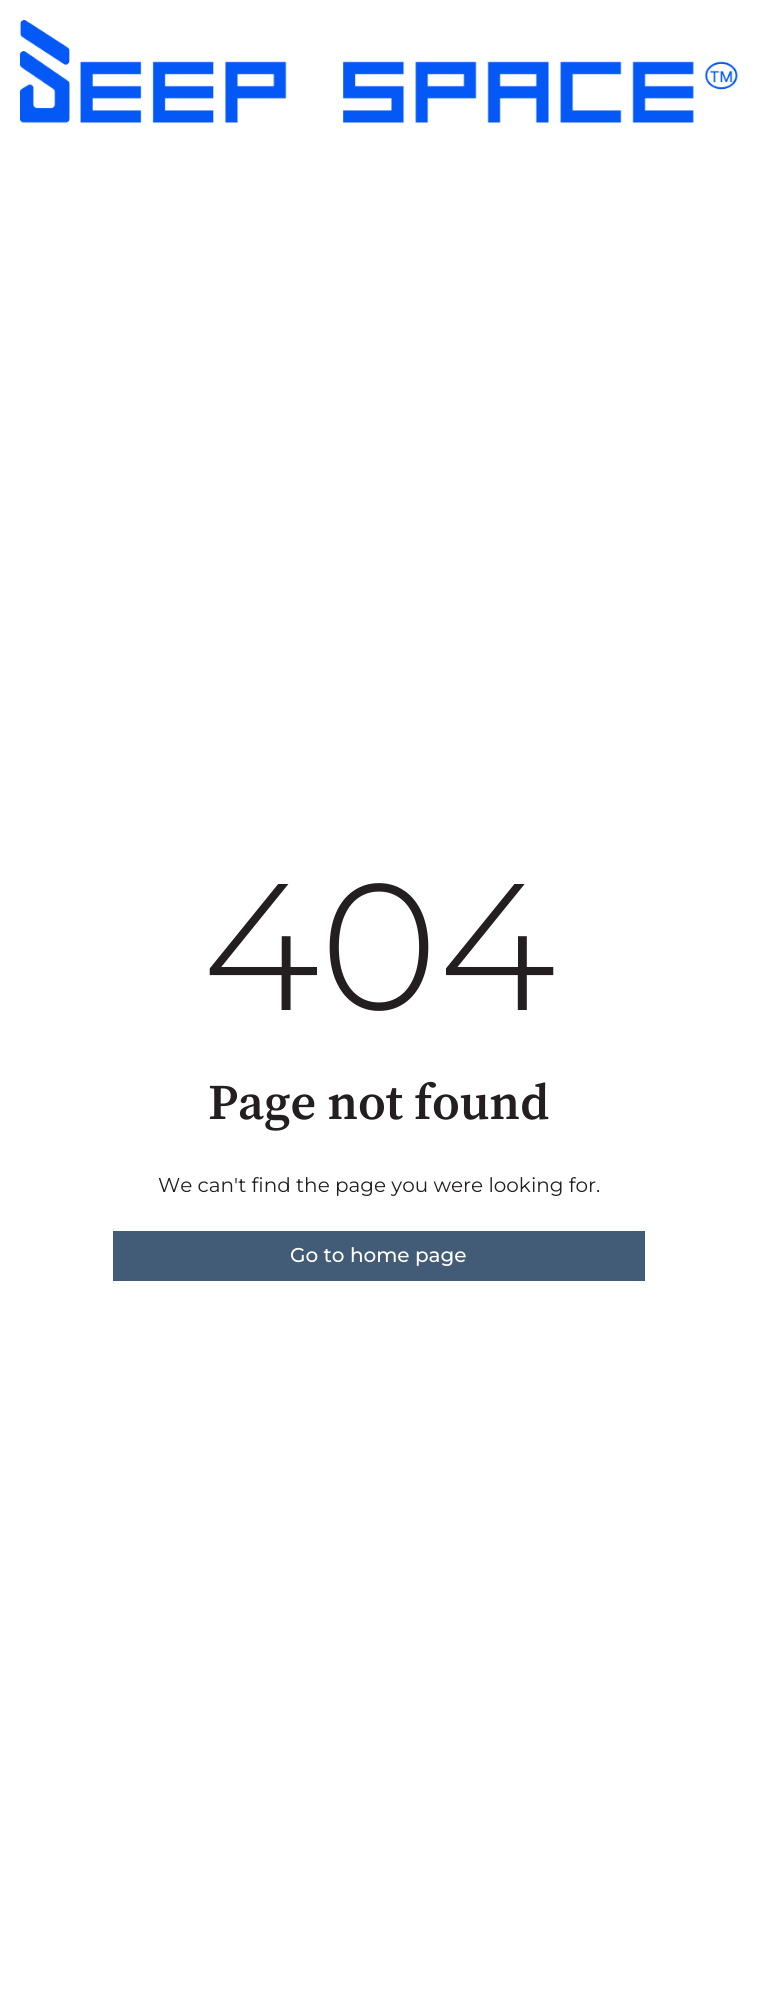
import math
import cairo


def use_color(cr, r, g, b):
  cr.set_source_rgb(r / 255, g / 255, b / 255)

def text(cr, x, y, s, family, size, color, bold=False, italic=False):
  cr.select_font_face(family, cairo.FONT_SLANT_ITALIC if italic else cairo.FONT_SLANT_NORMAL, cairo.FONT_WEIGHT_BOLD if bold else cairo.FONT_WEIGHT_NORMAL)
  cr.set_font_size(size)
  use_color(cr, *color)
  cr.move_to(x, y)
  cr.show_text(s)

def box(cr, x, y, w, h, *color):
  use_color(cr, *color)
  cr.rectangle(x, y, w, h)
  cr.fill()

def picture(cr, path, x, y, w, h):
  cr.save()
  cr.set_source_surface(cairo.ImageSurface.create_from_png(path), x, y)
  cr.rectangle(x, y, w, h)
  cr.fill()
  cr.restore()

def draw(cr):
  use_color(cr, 255, 255, 255)
  cr.paint()
  picture(cr, "img_01.png", 20, 20, 718, 103)
  box(cr, 113, 1231, 532, 50, 66, 91, 118)
  text(cr, 202, 1010, "404", "Montserrat Light", 180, (35, 31, 32))
  text(cr, 208, 1119, "Page not found", "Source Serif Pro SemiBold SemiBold", 50, (35, 31, 32))
  text(cr, 158, 1192, "We can't find the page you were looking for.", "Montserrat", 20, (35, 31, 32))
  text(cr, 290, 1262, "Go to home page", "Montserrat Medium", 20, (255, 255, 255))


surface = cairo.ImageSurface(cairo.FORMAT_RGB24, 757, 1994)
cr = cairo.Context(surface)
options = cairo.FontOptions()
options.set_hint_metrics(cairo.HINT_METRICS_OFF)
options.set_hint_style(cairo.HINT_STYLE_NONE)
cr.set_font_options(options)
cr.set_miter_limit(4)
draw(cr)
surface.write_to_png("out.png")
